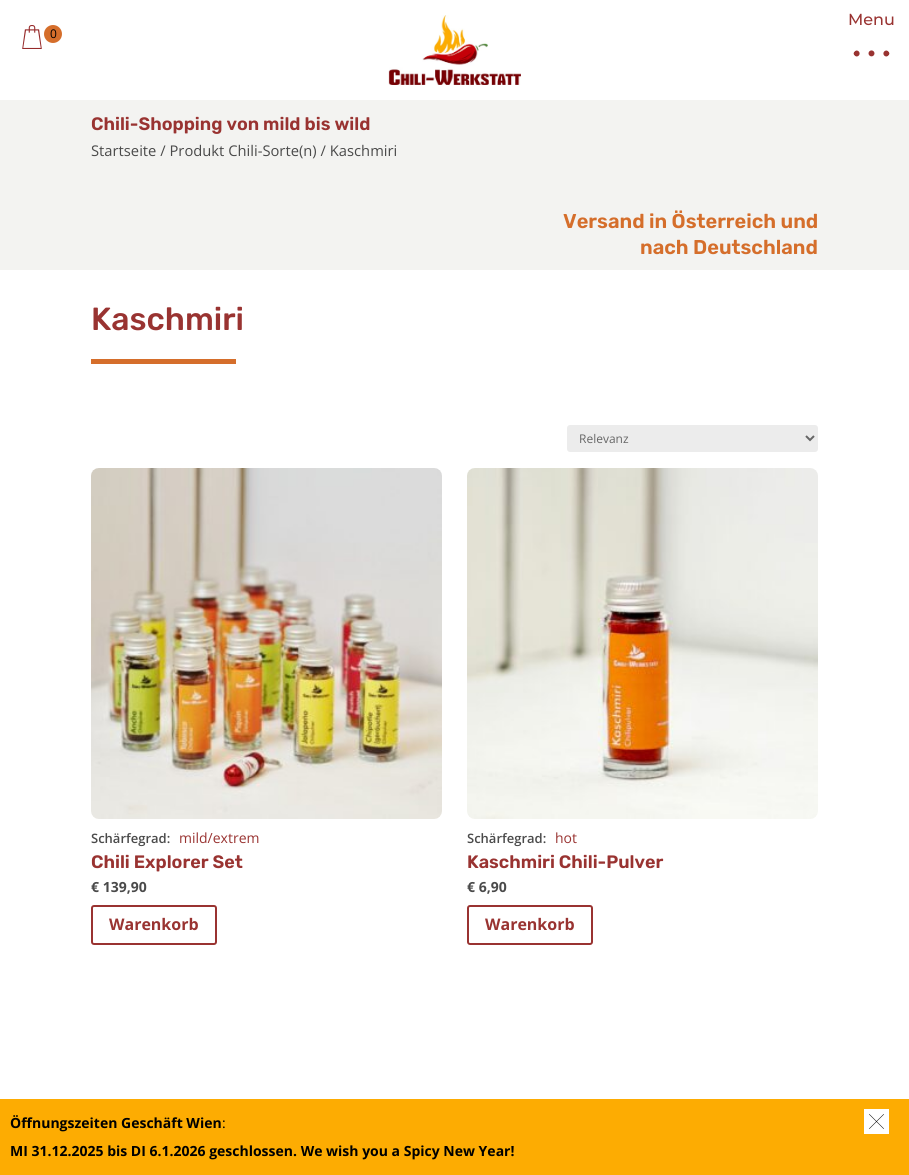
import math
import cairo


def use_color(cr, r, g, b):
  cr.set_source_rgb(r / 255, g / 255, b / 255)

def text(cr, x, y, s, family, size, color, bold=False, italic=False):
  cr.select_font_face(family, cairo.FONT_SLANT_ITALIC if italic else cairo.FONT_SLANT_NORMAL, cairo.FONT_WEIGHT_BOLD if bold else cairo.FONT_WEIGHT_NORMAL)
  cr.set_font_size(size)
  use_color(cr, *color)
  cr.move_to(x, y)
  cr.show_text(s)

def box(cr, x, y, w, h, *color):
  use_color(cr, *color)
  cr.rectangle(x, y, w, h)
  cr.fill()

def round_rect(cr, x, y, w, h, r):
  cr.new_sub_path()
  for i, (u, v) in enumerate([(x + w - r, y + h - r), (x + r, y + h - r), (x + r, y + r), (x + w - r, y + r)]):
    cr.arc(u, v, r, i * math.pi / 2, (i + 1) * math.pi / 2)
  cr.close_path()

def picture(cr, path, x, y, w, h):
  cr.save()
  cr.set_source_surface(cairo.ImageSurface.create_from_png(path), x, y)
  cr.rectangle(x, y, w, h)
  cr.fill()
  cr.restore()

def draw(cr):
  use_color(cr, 255, 255, 255)
  cr.paint()
  picture(cr, "img_01.png", 853, 50, 37, 7)
  picture(cr, "img_02.png", 22, 25, 20, 24)
  use_color(cr, 213, 110, 43)
  cr.arc(53, 34, 9, 0, 2 * math.pi)
  cr.fill()
  picture(cr, "img_03.png", 388, 15, 133, 70)
  box(cr, 0, 100, 909, 170, 243, 243, 241)
  box(cr, 91, 359, 145, 5, 213, 110, 43)
  use_color(cr, 236, 236, 236)
  round_rect(cr, 567, 425, 251, 27, 3)
  cr.fill()
  cr.new_path()
  cr.move_to(806, 436)
  cr.line_to(810, 440)
  cr.line_to(814, 436)
  use_color(cr, 102, 102, 102)
  cr.stroke()
  picture(cr, "img_04.png", 91, 468, 351, 351)
  round_rect(cr, 92, 906, 124, 38, 2)
  use_color(cr, 153, 51, 49)
  cr.stroke()
  picture(cr, "img_05.png", 467, 468, 351, 351)
  round_rect(cr, 468, 906, 124, 38, 2)
  cr.stroke()
  box(cr, 0, 1099, 909, 76, 253, 172, 2)
  box(cr, 864, 1109, 25, 25, 255, 255, 255)
  picture(cr, "img_06.png", 869, 1114, 15, 15)
  text(cr, 848, 25, "Menu", "Montserrat Medium", 16, (153, 51, 49))
  text(cr, 50, 38, "0", "Open Sans", 12, (0, 0, 0))
  text(cr, 91, 130, "Chili-Shopping von mild bis wild", "Rubik SemiBold", 18, (153, 51, 49))
  text(cr, 91, 156, "Startseite / Produkt Chili-Sorte(n) / Kaschmiri", "Open Sans", 14.75, (74, 74, 74))
  text(cr, 563, 228, "Versand in Österreich und", "Rubik SemiBold", 20, (213, 110, 43))
  text(cr, 640, 254, "nach Deutschland", "Rubik SemiBold", 20, (213, 110, 43))
  text(cr, 91, 330, "Kaschmiri", "Rubik Medium", 32, (153, 51, 49))
  text(cr, 579, 443, "Relevanz", "Open Sans", 12, (102, 102, 102))
  text(cr, 91, 843, "Schärfegrad:", "Open Sans SemiBold", 13, (74, 74, 74))
  text(cr, 179, 843, "mild/extrem", "Open Sans", 14, (153, 51, 49))
  text(cr, 91, 868, "Chili Explorer Set", "Rubik SemiBold", 18, (153, 51, 49))
  text(cr, 91, 892, "€ 139,90", "Open Sans", 14, (74, 74, 74), bold=True)
  text(cr, 109, 930, "Warenkorb", "Open Sans", 16, (153, 51, 49), bold=True)
  text(cr, 467, 843, "Schärfegrad:", "Open Sans SemiBold", 13, (74, 74, 74))
  text(cr, 555, 843, "hot", "Open Sans", 14, (153, 51, 49))
  text(cr, 467, 868, "Kaschmiri Chili-Pulver", "Rubik SemiBold", 18, (153, 51, 49))
  text(cr, 467, 892, "€ 6,90", "Open Sans", 14, (74, 74, 74), bold=True)
  text(cr, 485, 930, "Warenkorb", "Open Sans", 16, (153, 51, 49), bold=True)
  text(cr, 10, 1128, "Öffnungszeiten Geschäft Wien", "Open Sans", 14, (0, 0, 0), bold=True)
  text(cr, 222, 1128, ":", "Open Sans", 14, (0, 0, 0))
  text(cr, 10, 1156, "MI 31.12.2025 bis DI 6.1.2026 geschlossen. We wish you a Spicy New Year!", "Open Sans", 14, (0, 0, 0), bold=True)


surface = cairo.ImageSurface(cairo.FORMAT_RGB24, 909, 1175)
cr = cairo.Context(surface)
options = cairo.FontOptions()
options.set_hint_metrics(cairo.HINT_METRICS_OFF)
options.set_hint_style(cairo.HINT_STYLE_NONE)
cr.set_font_options(options)
cr.set_miter_limit(4)
draw(cr)
surface.write_to_png("out.png")
